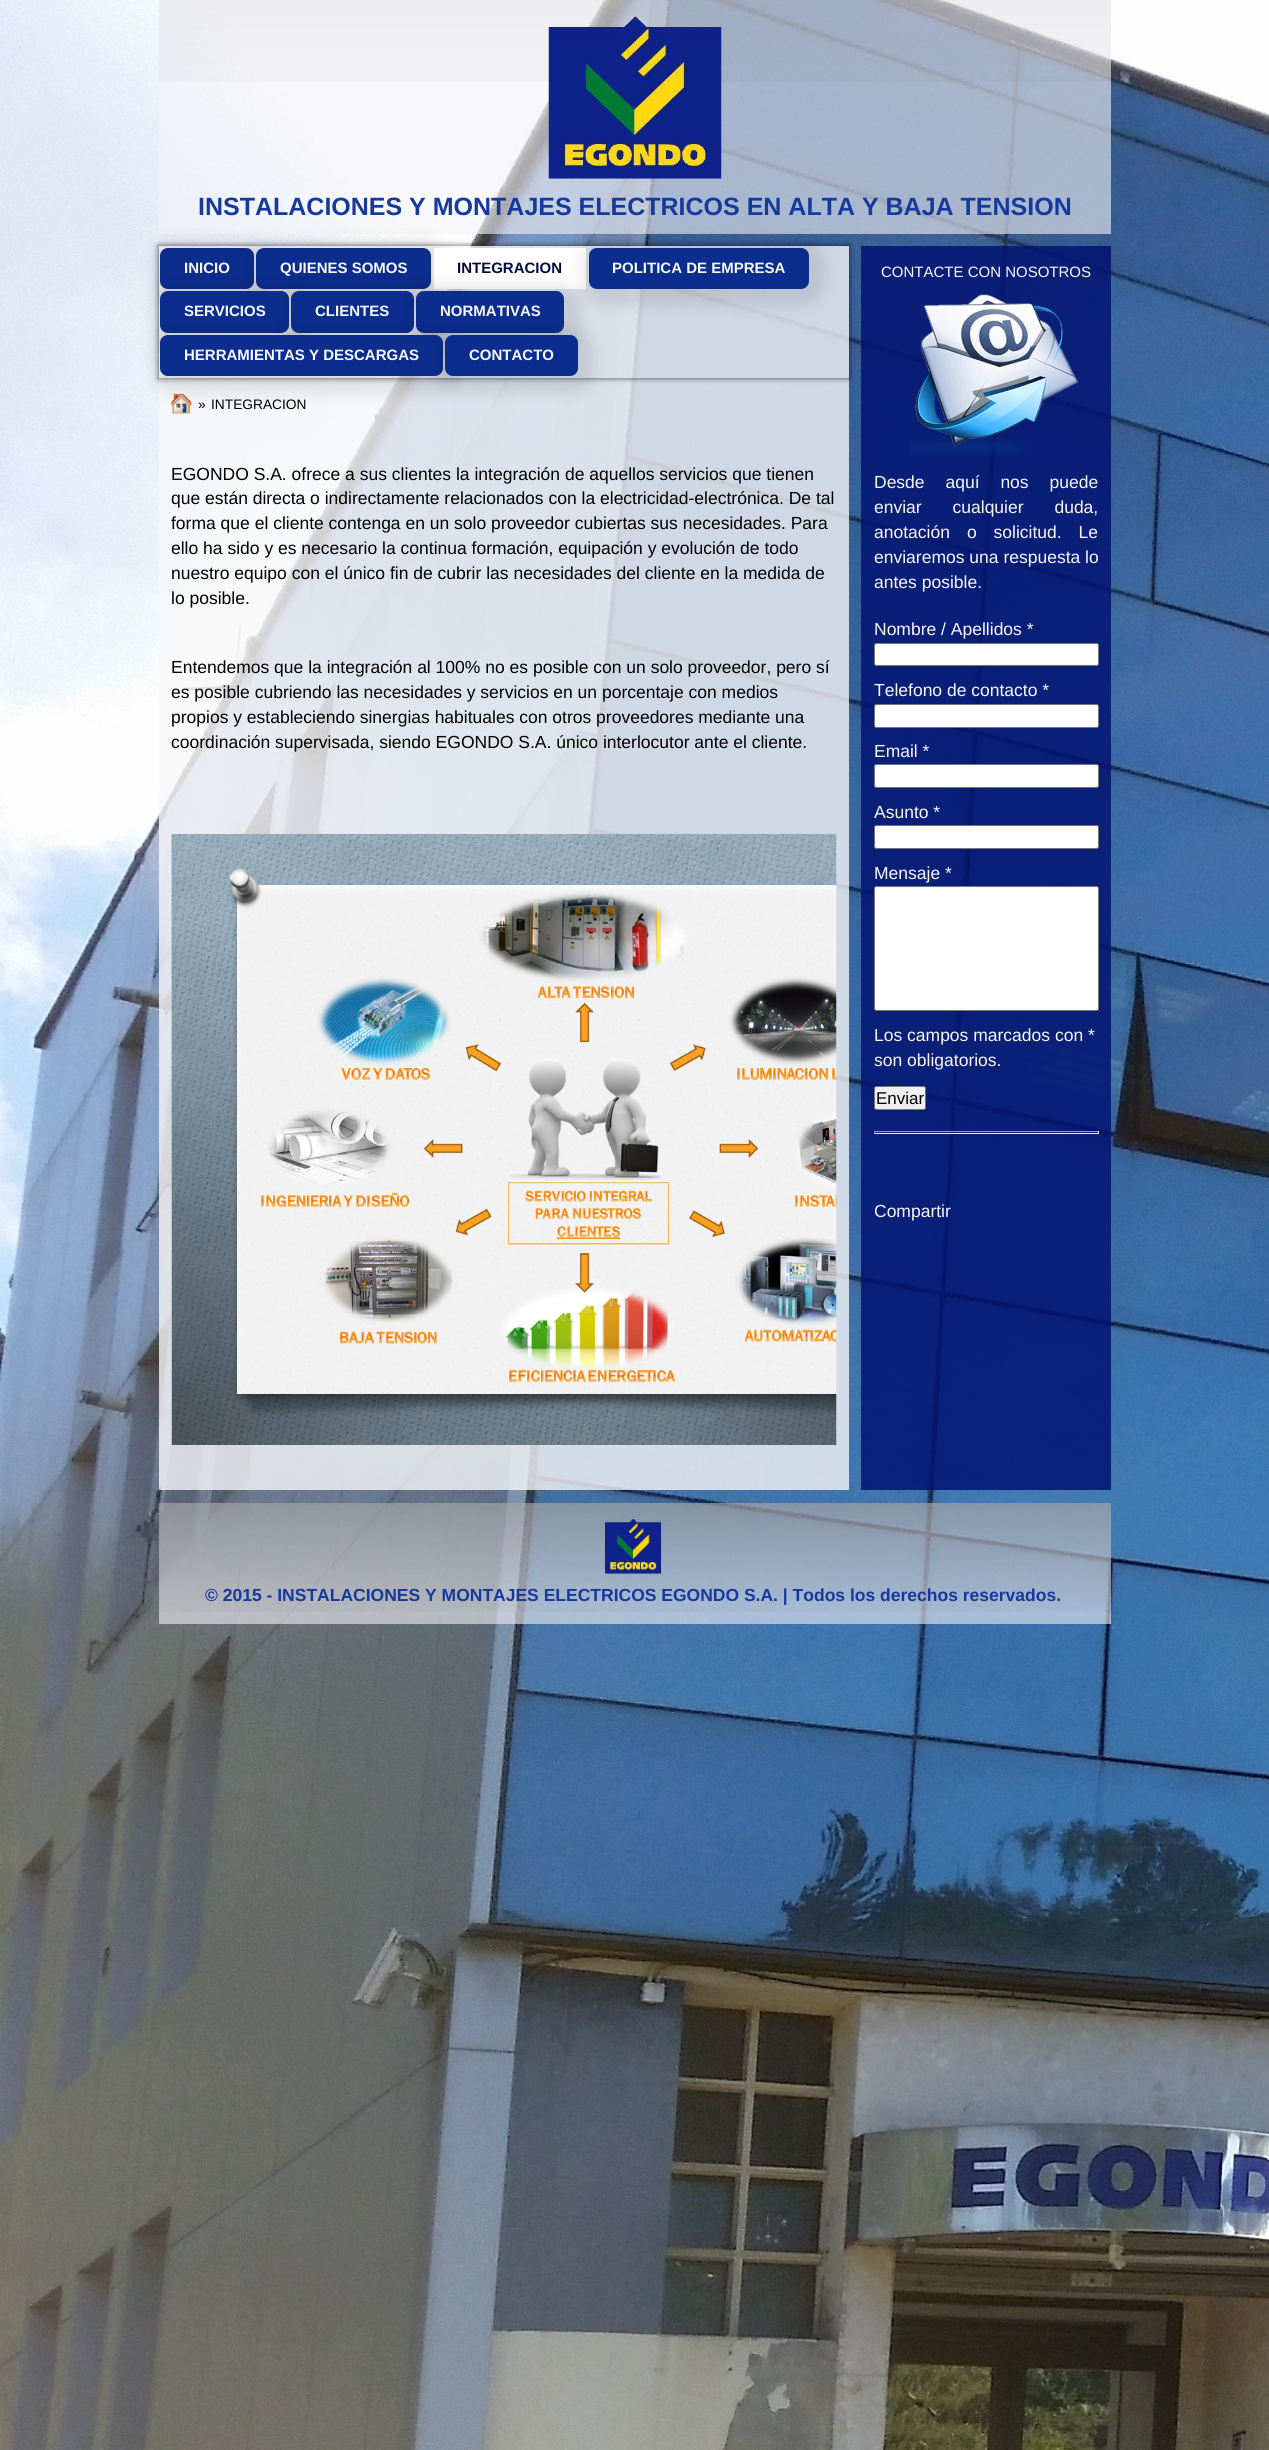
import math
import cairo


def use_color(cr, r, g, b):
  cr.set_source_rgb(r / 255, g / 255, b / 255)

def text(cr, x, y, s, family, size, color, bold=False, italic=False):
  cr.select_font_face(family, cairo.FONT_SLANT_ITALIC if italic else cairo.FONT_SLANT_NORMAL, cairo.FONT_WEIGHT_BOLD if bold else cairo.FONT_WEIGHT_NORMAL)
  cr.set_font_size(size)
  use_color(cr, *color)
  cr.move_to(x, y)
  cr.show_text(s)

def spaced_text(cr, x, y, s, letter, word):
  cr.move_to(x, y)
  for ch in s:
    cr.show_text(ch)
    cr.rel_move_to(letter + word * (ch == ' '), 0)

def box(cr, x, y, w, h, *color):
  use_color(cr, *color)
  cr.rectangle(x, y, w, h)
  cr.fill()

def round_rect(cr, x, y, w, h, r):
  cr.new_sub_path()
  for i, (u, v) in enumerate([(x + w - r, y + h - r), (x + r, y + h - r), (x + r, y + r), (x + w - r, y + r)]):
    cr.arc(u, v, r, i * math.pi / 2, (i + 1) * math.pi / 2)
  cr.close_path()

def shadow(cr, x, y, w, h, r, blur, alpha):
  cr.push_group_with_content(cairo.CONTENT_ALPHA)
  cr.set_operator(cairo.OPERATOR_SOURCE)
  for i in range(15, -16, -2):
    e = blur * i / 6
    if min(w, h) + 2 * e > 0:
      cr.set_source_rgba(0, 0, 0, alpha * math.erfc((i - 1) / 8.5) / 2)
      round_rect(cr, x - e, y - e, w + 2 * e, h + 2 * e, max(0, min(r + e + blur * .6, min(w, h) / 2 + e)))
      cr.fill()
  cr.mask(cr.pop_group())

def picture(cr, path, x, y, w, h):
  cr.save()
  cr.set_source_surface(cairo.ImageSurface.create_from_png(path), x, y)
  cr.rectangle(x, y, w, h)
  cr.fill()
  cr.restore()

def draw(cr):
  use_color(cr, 255, 255, 255)
  cr.paint()
  picture(cr, "img_01.png", 0, 0, 1269, 2450)
  cr.set_source_rgba(0.957, 0.957, 0.965, 0.6)
  cr.rectangle(159, 0, 952, 234)
  cr.fill()
  gradient = cairo.LinearGradient(635, 0, 635, 179)
  gradient.add_color_stop_rgba(0, 0, 0, 0, 0.04)
  gradient.add_color_stop_rgba(1, 0, 0, 0, 0)
  cr.set_source(gradient)
  cr.rectangle(159, 0, 952, 82)
  cr.fill()
  picture(cr, "img_02.png", 548, 16, 174, 163)
  cr.set_source_rgba(0.973, 0.973, 0.976, 0.79)
  cr.rectangle(159, 246, 690, 1244)
  cr.fill()
  cr.save()
  cr.set_fill_rule(cairo.FILL_RULE_EVEN_ODD)
  cr.new_path()
  cr.move_to(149, 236)
  cr.line_to(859, 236)
  cr.line_to(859, 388)
  cr.line_to(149, 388)
  cr.close_path()
  cr.move_to(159, 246)
  cr.line_to(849, 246)
  cr.line_to(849, 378)
  cr.line_to(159, 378)
  cr.close_path()
  cr.clip()
  use_color(cr, 0, 0, 0)
  shadow(cr, 158, 245, 692, 134, 0, 2.5, 0.5)
  cr.restore()
  use_color(cr, 0, 0, 0)
  shadow(cr, 154, 241, 116, 64, 19, 7.5, 0.1)
  use_color(cr, 11, 45, 142)
  round_rect(cr, 160, 248, 94, 41, 8)
  cr.fill()
  use_color(cr, 0, 0, 0)
  shadow(cr, 250, 241, 198, 64, 19, 7.5, 0.1)
  use_color(cr, 11, 45, 142)
  round_rect(cr, 256, 248, 175, 41, 8)
  cr.fill()
  box(cr, 434, 248, 152, 41, 255, 255, 255)
  use_color(cr, 0, 0, 0)
  shadow(cr, 583, 241, 242, 64, 19, 7.5, 0.1)
  use_color(cr, 11, 45, 142)
  round_rect(cr, 589, 248, 220, 41, 8)
  cr.fill()
  use_color(cr, 0, 0, 0)
  shadow(cr, 154, 285, 151, 64, 19, 7.5, 0.1)
  use_color(cr, 11, 45, 142)
  round_rect(cr, 160, 291, 129, 42, 8)
  cr.fill()
  use_color(cr, 0, 0, 0)
  shadow(cr, 285, 285, 145, 64, 19, 7.5, 0.1)
  use_color(cr, 11, 45, 142)
  round_rect(cr, 291, 291, 123, 42, 8)
  cr.fill()
  use_color(cr, 0, 0, 0)
  shadow(cr, 410, 285, 170, 64, 19, 7.5, 0.1)
  use_color(cr, 11, 45, 142)
  round_rect(cr, 416, 291, 148, 42, 8)
  cr.fill()
  use_color(cr, 0, 0, 0)
  shadow(cr, 154, 329, 305, 64, 19, 7.5, 0.1)
  use_color(cr, 11, 45, 142)
  round_rect(cr, 160, 335, 283, 41, 8)
  cr.fill()
  use_color(cr, 0, 0, 0)
  shadow(cr, 439, 329, 155, 64, 19, 7.5, 0.1)
  use_color(cr, 11, 45, 142)
  round_rect(cr, 445, 335, 133, 41, 8)
  cr.fill()
  picture(cr, "img_03.png", 171, 393, 21, 21)
  picture(cr, "img_04.png", 171, 833, 666, 612)
  cr.set_source_rgba(0.012, 0.078, 0.447, 0.86)
  cr.rectangle(861, 246, 250, 1244)
  cr.fill()
  picture(cr, "img_05.png", 909, 294, 170, 162)
  use_color(cr, 255, 255, 255)
  round_rect(cr, 874.5, 643.5, 224, 22, 2)
  cr.fill_preserve()
  use_color(cr, 118, 118, 118)
  cr.set_line_width(1)
  cr.stroke()
  use_color(cr, 255, 255, 255)
  round_rect(cr, 874.5, 704.5, 224, 23, 2)
  cr.fill_preserve()
  use_color(cr, 118, 118, 118)
  cr.stroke()
  use_color(cr, 255, 255, 255)
  round_rect(cr, 874.5, 764.5, 224, 23, 2)
  cr.fill_preserve()
  use_color(cr, 118, 118, 118)
  cr.stroke()
  use_color(cr, 255, 255, 255)
  round_rect(cr, 874.5, 825.5, 224, 23, 2)
  cr.fill_preserve()
  use_color(cr, 118, 118, 118)
  cr.stroke()
  use_color(cr, 255, 255, 255)
  round_rect(cr, 874.5, 886.5, 224, 124, 2)
  cr.fill_preserve()
  use_color(cr, 118, 118, 118)
  cr.stroke()
  use_color(cr, 239, 239, 239)
  round_rect(cr, 874.5, 1086.5, 51, 23, 2)
  cr.fill_preserve()
  use_color(cr, 118, 118, 118)
  cr.stroke()
  box(cr, 874, 1131, 225, 1, 159, 159, 159)
  box(cr, 1098, 1131, 1, 3, 238, 238, 238)
  box(cr, 874, 1133, 225, 1, 238, 238, 238)
  box(cr, 874, 1131, 1, 3, 159, 159, 159)
  cr.set_source_rgba(0.941, 0.941, 0.953, 0.6)
  cr.rectangle(159, 1503, 952, 121)
  cr.fill()
  gradient = cairo.LinearGradient(635, 1503, 635, 1624)
  gradient.add_color_stop_rgba(0, 0, 0, 0, 0.22)
  gradient.add_color_stop_rgba(1, 0, 0, 0, 0)
  cr.set_source(gradient)
  cr.rectangle(159, 1503, 952, 109)
  cr.fill()
  picture(cr, "img_06.png", 605, 1518, 57, 56)
  text(cr, 198, 215, "INSTALACIONES Y MONTAJES ELECTRICOS EN ALTA Y BAJA TENSION", "Liberation Sans", 25, (21, 57, 157), bold=True)
  text(cr, 184, 273, "INICIO", "Liberation Sans", 15, (248, 248, 249), bold=True)
  text(cr, 280, 273, "QUIENES SOMOS", "Liberation Sans", 15, (248, 248, 249), bold=True)
  text(cr, 457, 273, "INTEGRACION", "Liberation Sans", 15, (2, 11, 60), bold=True)
  text(cr, 612, 273, "POLITICA DE EMPRESA", "Liberation Sans", 15, (248, 248, 249), bold=True)
  text(cr, 184, 316, "SERVICIOS", "Liberation Sans", 15, (248, 248, 249), bold=True)
  text(cr, 315, 316, "CLIENTES", "Liberation Sans", 15, (248, 248, 249), bold=True)
  text(cr, 440, 316, "NORMATIVAS", "Liberation Sans", 15, (248, 248, 249), bold=True)
  text(cr, 184, 360, "HERRAMIENTAS Y DESCARGAS", "Liberation Sans", 15, (248, 248, 249), bold=True)
  text(cr, 469, 360, "CONTACTO", "Liberation Sans", 15, (248, 248, 249), bold=True)
  text(cr, 198, 409, "»", "Liberation Sans", 13.75, (0, 0, 0))
  text(cr, 211, 409, "INTEGRACION", "Liberation Sans", 13.75, (0, 0, 0))
  text(cr, 171, 480, "EGONDO S.A. ofrece a sus clientes la integración de aquellos servicios que tienen", "Liberation Sans", 17.5, (0, 0, 0))
  text(cr, 171, 504, "que están directa o indirectamente relacionados con la electricidad-electrónica. De tal", "Liberation Sans", 17.5, (0, 0, 0))
  text(cr, 171, 529, "forma que el cliente contenga en un solo proveedor cubiertas sus necesidades. Para", "Liberation Sans", 17.5, (0, 0, 0))
  text(cr, 171, 554, "ello ha sido y es necesario la continua formación, equipación y evolución de todo", "Liberation Sans", 17.5, (0, 0, 0))
  text(cr, 171, 579, "nuestro equipo con el único fin de cubrir las necesidades del cliente en la medida de", "Liberation Sans", 17.5, (0, 0, 0))
  text(cr, 171, 604, "lo posible.", "Liberation Sans", 17.5, (0, 0, 0))
  text(cr, 171, 673, "Entendemos que la integración al 100% no es posible con un solo proveedor, pero sí", "Liberation Sans", 17.5, (0, 0, 0))
  text(cr, 171, 698, "es posible cubriendo las necesidades y servicios en un porcentaje con medios", "Liberation Sans", 17.5, (0, 0, 0))
  text(cr, 171, 723, "propios y estableciendo sinergias habituales con otros proveedores mediante una", "Liberation Sans", 17.5, (0, 0, 0))
  text(cr, 171, 748, "coordinación supervisada, siendo EGONDO S.A. único interlocutor ante el cliente.", "Liberation Sans", 17.5, (0, 0, 0))
  text(cr, 881, 277, "CONTACTE CON NOSOTROS", "Liberation Sans", 15, (248, 248, 249))
  cr.set_font_size(17.5)
  spaced_text(cr, 874, 488, "Desde aquí nos puede", 0, 16)
  spaced_text(cr, 874, 513, "enviar cualquier duda,", 0, 26)
  text(cr, 874, 538, "anotación", "Liberation Sans", 17.5, (248, 248, 249))
  spaced_text(cr, 967, 538, "o solicitud. Le", 0, 12)
  text(cr, 874, 563, "enviaremos una respuesta lo", "Liberation Sans", 17.5, (248, 248, 249))
  text(cr, 874, 588, "antes posible.", "Liberation Sans", 17.5, (248, 248, 249))
  text(cr, 874, 635, "Nombre / Apellidos *", "Liberation Sans", 17.5, (248, 248, 249))
  text(cr, 874, 696, "Telefono de contacto *", "Liberation Sans", 17.5, (248, 248, 249))
  text(cr, 874, 757, "Email *", "Liberation Sans", 17.5, (248, 248, 249))
  text(cr, 874, 818, "Asunto *", "Liberation Sans", 17.5, (248, 248, 249))
  text(cr, 874, 879, "Mensaje *", "Liberation Sans", 17.5, (248, 248, 249))
  text(cr, 874, 1041, "Los campos marcados con *", "Liberation Sans", 17.5, (248, 248, 249))
  text(cr, 874, 1066, "son obligatorios.", "Liberation Sans", 17.5, (248, 248, 249))
  text(cr, 876, 1104, "Enviar", "Liberation Sans", 17, (0, 0, 0))
  text(cr, 874, 1217, "Compartir", "Liberation Sans", 17.5, (248, 248, 249))
  text(cr, 205, 1601, "© 2015 - INSTALACIONES Y MONTAJES ELECTRICOS EGONDO S.A. | Todos los derechos reservados.", "Liberation Sans", 17.5, (21, 57, 157), bold=True)


surface = cairo.ImageSurface(cairo.FORMAT_RGB24, 1269, 2450)
cr = cairo.Context(surface)
options = cairo.FontOptions()
options.set_hint_metrics(cairo.HINT_METRICS_OFF)
options.set_hint_style(cairo.HINT_STYLE_NONE)
cr.set_font_options(options)
cr.set_miter_limit(4)
draw(cr)
surface.write_to_png("out.png")
